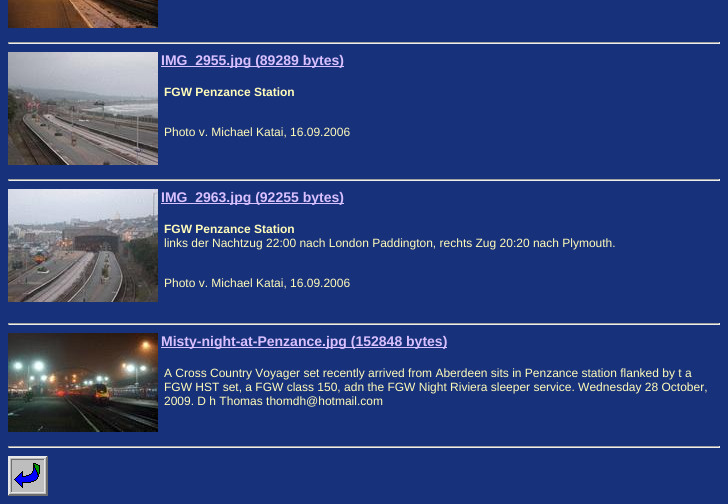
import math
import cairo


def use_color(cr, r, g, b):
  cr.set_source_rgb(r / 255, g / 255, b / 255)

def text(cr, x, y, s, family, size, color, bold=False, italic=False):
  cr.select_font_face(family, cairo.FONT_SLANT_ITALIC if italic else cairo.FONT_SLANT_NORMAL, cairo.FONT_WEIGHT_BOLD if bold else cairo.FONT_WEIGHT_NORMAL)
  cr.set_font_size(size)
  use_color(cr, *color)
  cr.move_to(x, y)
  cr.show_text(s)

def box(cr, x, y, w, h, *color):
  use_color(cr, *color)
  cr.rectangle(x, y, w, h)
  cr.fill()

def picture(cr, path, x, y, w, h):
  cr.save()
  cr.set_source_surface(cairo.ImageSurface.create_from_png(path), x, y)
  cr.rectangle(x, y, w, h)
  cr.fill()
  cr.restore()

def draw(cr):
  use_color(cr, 24, 49, 123)
  cr.paint()
  picture(cr, "img_01.png", 8, 0, 150, 28)
  box(cr, 8, 42, 712, 1, 159, 159, 159)
  box(cr, 719, 42, 1, 2, 238, 238, 238)
  box(cr, 8, 43, 712, 1, 238, 238, 238)
  box(cr, 8, 42, 1, 2, 159, 159, 159)
  picture(cr, "img_02.png", 8, 52, 150, 113)
  box(cr, 161, 66, 183, 1, 217, 192, 255)
  box(cr, 8, 179, 712, 1, 159, 159, 159)
  box(cr, 719, 179, 1, 2, 238, 238, 238)
  box(cr, 8, 180, 712, 1, 238, 238, 238)
  box(cr, 8, 179, 1, 2, 159, 159, 159)
  picture(cr, "img_03.png", 8, 189, 150, 113)
  box(cr, 161, 203, 183, 1, 217, 192, 255)
  box(cr, 8, 323, 712, 1, 159, 159, 159)
  box(cr, 719, 323, 1, 2, 238, 238, 238)
  box(cr, 8, 324, 712, 1, 238, 238, 238)
  box(cr, 8, 323, 1, 2, 159, 159, 159)
  picture(cr, "img_04.png", 8, 333, 150, 99)
  box(cr, 161, 347, 286, 1, 217, 192, 255)
  box(cr, 8, 446, 712, 1, 159, 159, 159)
  box(cr, 719, 446, 1, 2, 238, 238, 238)
  box(cr, 8, 447, 712, 1, 238, 238, 238)
  box(cr, 8, 446, 1, 2, 159, 159, 159)
  picture(cr, "img_05.png", 8, 456, 40, 40)
  text(cr, 161, 65, "IMG_2955.jpg (89289 bytes)", "Liberation Sans", 14, (217, 192, 255), bold=True)
  text(cr, 164, 96, "FGW Penzance Station", "Liberation Sans", 12, (255, 252, 185), bold=True)
  text(cr, 164, 136, "Photo v. Michael Katai, 16.09.2006", "Liberation Sans", 12, (255, 252, 185))
  text(cr, 161, 202, "IMG_2963.jpg (92255 bytes)", "Liberation Sans", 14, (217, 192, 255), bold=True)
  text(cr, 164, 233, "FGW Penzance Station", "Liberation Sans", 12, (255, 252, 185), bold=True)
  text(cr, 164, 247, "links der Nachtzug 22:00 nach London Paddington, rechts Zug 20:20 nach Plymouth.", "Liberation Sans", 12, (255, 252, 185))
  text(cr, 164, 287, "Photo v. Michael Katai, 16.09.2006", "Liberation Sans", 12, (255, 252, 185))
  text(cr, 161, 346, "Misty-night-at-Penzance.jpg (152848 bytes)", "Liberation Sans", 14, (217, 192, 255), bold=True)
  text(cr, 164, 377, "A Cross Country Voyager set recently arrived from Aberdeen sits in Penzance station flanked by t a", "Liberation Sans", 12, (255, 252, 185))
  text(cr, 164, 391, "FGW HST set, a FGW class 150, adn the FGW Night Riviera sleeper service. Wednesday 28 October,", "Liberation Sans", 12, (255, 252, 185))
  text(cr, 164, 405, "2009. D h Thomas thomdh@hotmail.com", "Liberation Sans", 12, (255, 252, 185))


surface = cairo.ImageSurface(cairo.FORMAT_RGB24, 728, 504)
cr = cairo.Context(surface)
options = cairo.FontOptions()
options.set_hint_metrics(cairo.HINT_METRICS_OFF)
options.set_hint_style(cairo.HINT_STYLE_NONE)
cr.set_font_options(options)
cr.set_miter_limit(4)
draw(cr)
surface.write_to_png("out.png")
